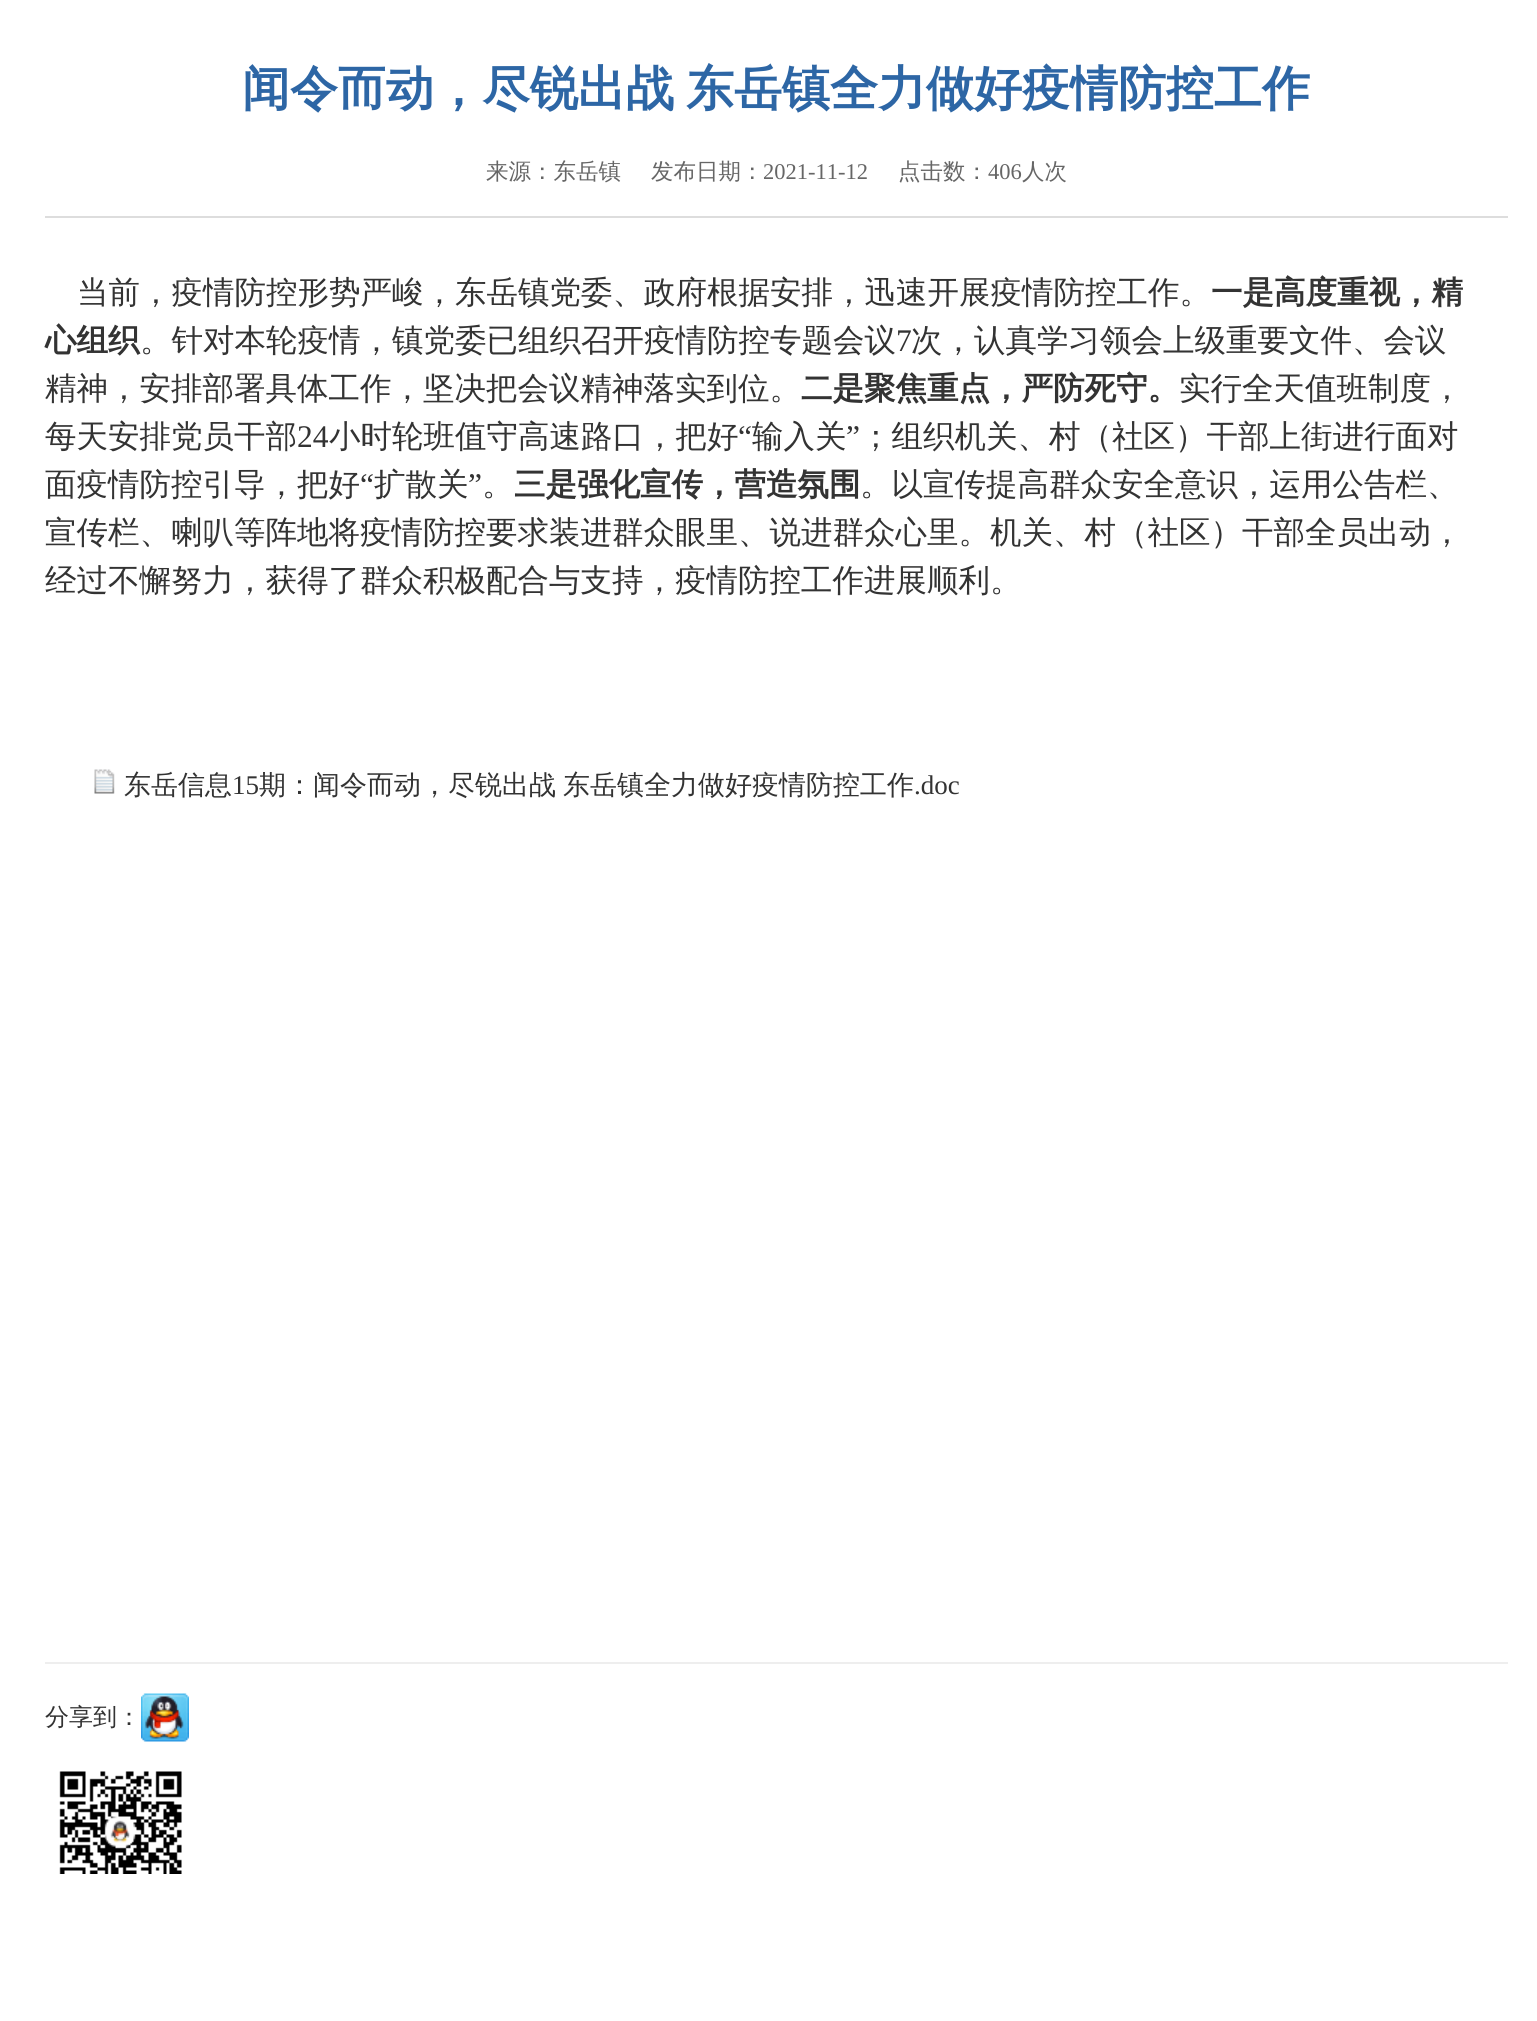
import math
import cairo


def use_color(cr, r, g, b):
  cr.set_source_rgb(r / 255, g / 255, b / 255)

def text(cr, x, y, s, family, size, color, bold=False, italic=False):
  cr.select_font_face(family, cairo.FONT_SLANT_ITALIC if italic else cairo.FONT_SLANT_NORMAL, cairo.FONT_WEIGHT_BOLD if bold else cairo.FONT_WEIGHT_NORMAL)
  cr.set_font_size(size)
  use_color(cr, *color)
  cr.move_to(x, y)
  cr.show_text(s)

def box(cr, x, y, w, h, *color):
  use_color(cr, *color)
  cr.rectangle(x, y, w, h)
  cr.fill()

def picture(cr, path, x, y, w, h):
  cr.save()
  cr.set_source_surface(cairo.ImageSurface.create_from_png(path), x, y)
  cr.rectangle(x, y, w, h)
  cr.fill()
  cr.restore()

def draw(cr):
  use_color(cr, 255, 255, 255)
  cr.paint()
  box(cr, 45, 216, 1463, 2, 221, 221, 221)
  picture(cr, "img_01.png", 94, 769, 21, 25)
  box(cr, 45, 1662, 1463, 2, 238, 238, 238)
  picture(cr, "img_02.png", 141, 1693, 48, 49)
  picture(cr, "img_03.png", 59, 1771, 123, 103)
  text(cr, 242, 105, "闻令而动，尽锐出战", "WenQuanYi Zen Hei", 48, (45, 102, 165), bold=True)
  text(cr, 686, 105, "东岳镇全力做好疫情防控工作", "WenQuanYi Zen Hei", 48, (45, 102, 165), bold=True)
  text(cr, 486, 179, "来源：东岳镇", "WenQuanYi Zen Hei Medium", 22.5, (102, 102, 102))
  text(cr, 651, 179, "发布日期：", "WenQuanYi Zen Hei Medium", 22.5, (102, 102, 102))
  text(cr, 763, 179, "2021-11-12", "Liberation Serif", 22.5, (102, 102, 102))
  text(cr, 898, 179, "点击数：", "WenQuanYi Zen Hei Medium", 22.5, (102, 102, 102))
  text(cr, 988, 179, "406", "Liberation Serif", 22.5, (102, 102, 102))
  text(cr, 1022, 179, "人次", "WenQuanYi Zen Hei Medium", 22.5, (102, 102, 102))
  text(cr, 77, 303, "当前，疫情防控形势严峻，东岳镇党委、政府根据安排，迅速开展疫情防控工作。", "WenQuanYi Zen Hei Medium", 31.5, (51, 51, 51))
  text(cr, 1211, 303, "一是高度重视，精", "WenQuanYi Zen Hei", 31.5, (51, 51, 51), bold=True)
  text(cr, 45, 351, "心组织", "WenQuanYi Zen Hei", 31.5, (51, 51, 51), bold=True)
  text(cr, 140, 351, "。针对本轮疫情，镇党委已组织召开疫情防控专题会议", "WenQuanYi Zen Hei Medium", 31.5, (51, 51, 51))
  text(cr, 896, 351, "7", "Liberation Serif", 31.5, (51, 51, 51))
  text(cr, 911, 351, "次，认真学习领会上级重要文件、会议", "WenQuanYi Zen Hei Medium", 31.5, (51, 51, 51))
  text(cr, 45, 399, "精神，安排部署具体工作，坚决把会议精神落实到位。", "WenQuanYi Zen Hei Medium", 31.5, (51, 51, 51))
  text(cr, 801, 399, "二是聚焦重点，严防死守。", "WenQuanYi Zen Hei", 31.5, (51, 51, 51), bold=True)
  text(cr, 1179, 399, "实行全天值班制度，", "WenQuanYi Zen Hei Medium", 31.5, (51, 51, 51))
  text(cr, 45, 447, "每天安排党员干部", "WenQuanYi Zen Hei Medium", 31.5, (51, 51, 51))
  text(cr, 297, 447, "24", "Liberation Serif", 31.5, (51, 51, 51))
  text(cr, 329, 447, "小时轮班值守高速路口，把好", "WenQuanYi Zen Hei Medium", 31.5, (51, 51, 51))
  text(cr, 738, 447, "“", "Liberation Serif", 31.5, (51, 51, 51))
  text(cr, 752, 447, "输入关", "WenQuanYi Zen Hei Medium", 31.5, (51, 51, 51))
  text(cr, 846, 447, "”", "Liberation Serif", 31.5, (51, 51, 51))
  text(cr, 860, 447, "；组织机关、村（社区）干部上街进行面对", "WenQuanYi Zen Hei Medium", 31.5, (51, 51, 51))
  text(cr, 45, 495, "面疫情防控引导，把好", "WenQuanYi Zen Hei Medium", 31.5, (51, 51, 51))
  text(cr, 360, 495, "“", "Liberation Serif", 31.5, (51, 51, 51))
  text(cr, 374, 495, "扩散关", "WenQuanYi Zen Hei Medium", 31.5, (51, 51, 51))
  text(cr, 468, 495, "”", "Liberation Serif", 31.5, (51, 51, 51))
  text(cr, 514, 495, "三是强化宣传，营造氛围", "WenQuanYi Zen Hei", 31.5, (51, 51, 51), bold=True)
  text(cr, 860, 495, "。以宣传提高群众安全意识，运用公告栏、", "WenQuanYi Zen Hei Medium", 31.5, (51, 51, 51))
  text(cr, 482, 495, "。", "WenQuanYi Zen Hei Medium", 31.5, (51, 51, 51))
  text(cr, 45, 543, "宣传栏、喇叭等阵地将疫情防控要求装进群众眼里、说进群众心里。机关、村（社区）干部全员出动，", "WenQuanYi Zen Hei Medium", 31.5, (51, 51, 51))
  text(cr, 45, 591, "经过不懈努力，获得了群众积极配合与支持，疫情防控工作进展顺利。", "WenQuanYi Zen Hei Medium", 31.5, (51, 51, 51))
  text(cr, 124, 794, "东岳信息", "WenQuanYi Zen Hei Medium", 27, (51, 51, 51))
  text(cr, 232, 794, "15", "Liberation Serif", 27, (51, 51, 51))
  text(cr, 259, 794, "期：闻令而动，尽锐出战", "WenQuanYi Zen Hei Medium", 27, (51, 51, 51))
  text(cr, 563, 794, "东岳镇全力做好疫情防控工作", "WenQuanYi Zen Hei Medium", 27, (51, 51, 51))
  text(cr, 914, 794, ".doc", "Liberation Serif", 27, (51, 51, 51))
  text(cr, 45, 1725, "分享到：", "WenQuanYi Zen Hei Medium", 24, (51, 51, 51))


surface = cairo.ImageSurface(cairo.FORMAT_RGB24, 1537, 2021)
cr = cairo.Context(surface)
options = cairo.FontOptions()
options.set_hint_metrics(cairo.HINT_METRICS_OFF)
options.set_hint_style(cairo.HINT_STYLE_NONE)
cr.set_font_options(options)
cr.set_miter_limit(4)
draw(cr)
surface.write_to_png("out.png")
